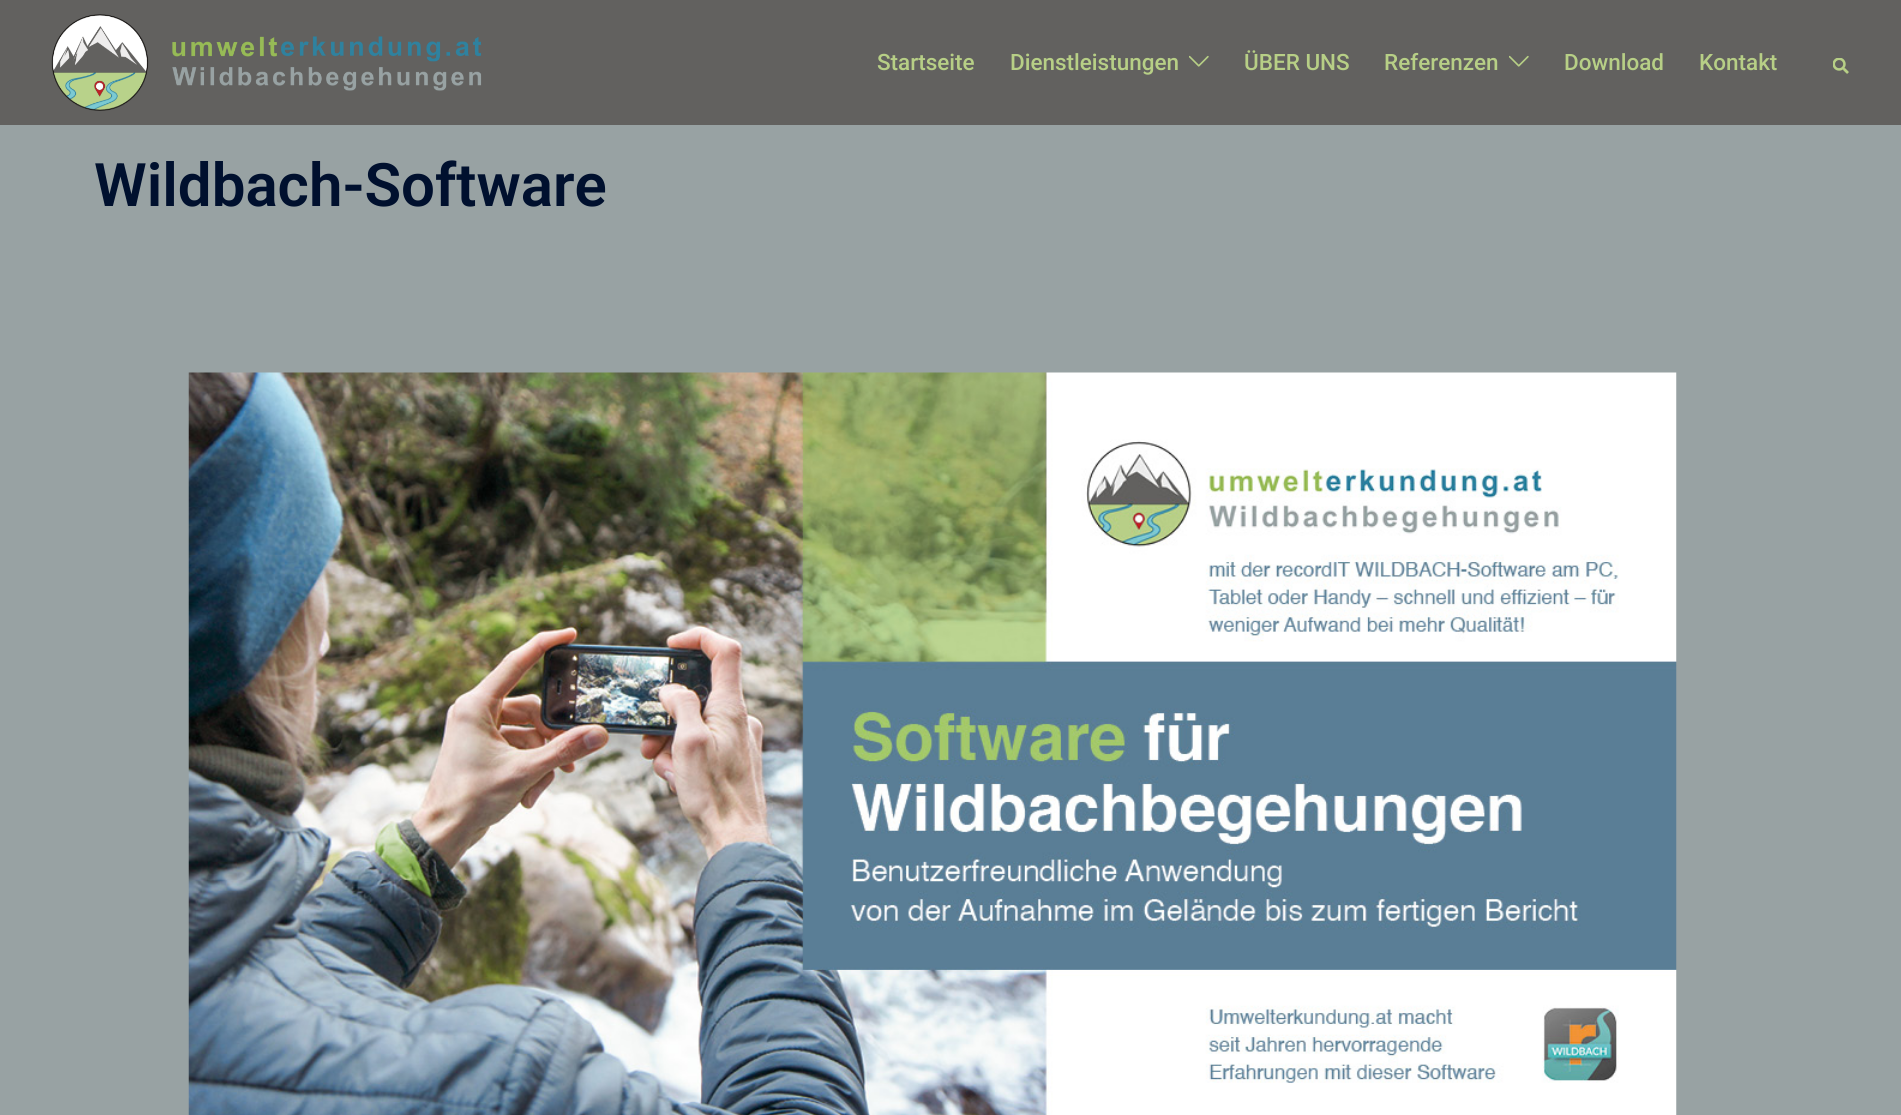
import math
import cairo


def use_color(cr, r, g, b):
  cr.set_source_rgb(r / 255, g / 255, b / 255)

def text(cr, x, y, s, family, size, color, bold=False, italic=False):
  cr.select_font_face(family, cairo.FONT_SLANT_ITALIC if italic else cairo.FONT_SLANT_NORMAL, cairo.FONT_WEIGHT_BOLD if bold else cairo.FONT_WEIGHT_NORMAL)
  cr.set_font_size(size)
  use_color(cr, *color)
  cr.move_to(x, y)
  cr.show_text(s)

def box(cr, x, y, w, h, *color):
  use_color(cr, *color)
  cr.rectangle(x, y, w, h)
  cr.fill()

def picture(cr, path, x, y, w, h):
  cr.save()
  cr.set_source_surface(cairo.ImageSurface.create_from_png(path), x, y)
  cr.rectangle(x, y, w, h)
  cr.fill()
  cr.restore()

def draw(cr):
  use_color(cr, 152, 162, 163)
  cr.paint()
  box(cr, 0, 0, 1901, 125, 98, 97, 95)
  picture(cr, "img_01.png", 51, 14, 431, 97)
  picture(cr, "img_02.png", 1189, 55, 20, 12)
  picture(cr, "img_02.png", 1509, 55, 20, 12)
  picture(cr, "img_03.png", 1833, 58, 16, 16)
  picture(cr, "img_04.png", 188, 372, 1489, 743)
  text(cr, 877, 70, "Startseite", "Roboto Medium", 22.5, (183, 207, 134))
  text(cr, 1010, 70, "Dienstleistungen", "Roboto Medium", 22.5, (183, 207, 134))
  text(cr, 1244, 70, "ÜBER UNS", "Roboto Medium", 22.5, (183, 207, 134))
  text(cr, 1384, 70, "Referenzen", "Roboto Medium", 22.5, (183, 207, 134))
  text(cr, 1564, 70, "Download", "Roboto Medium", 22.5, (183, 207, 134))
  text(cr, 1699, 70, "Kontakt", "Roboto Medium", 22.5, (183, 207, 134))
  text(cr, 94, 206, "Wildbach-Software", "Roboto SemiBold", 60, (0, 16, 46))


surface = cairo.ImageSurface(cairo.FORMAT_RGB24, 1901, 1115)
cr = cairo.Context(surface)
options = cairo.FontOptions()
options.set_hint_metrics(cairo.HINT_METRICS_OFF)
options.set_hint_style(cairo.HINT_STYLE_NONE)
cr.set_font_options(options)
cr.set_miter_limit(4)
draw(cr)
surface.write_to_png("out.png")
